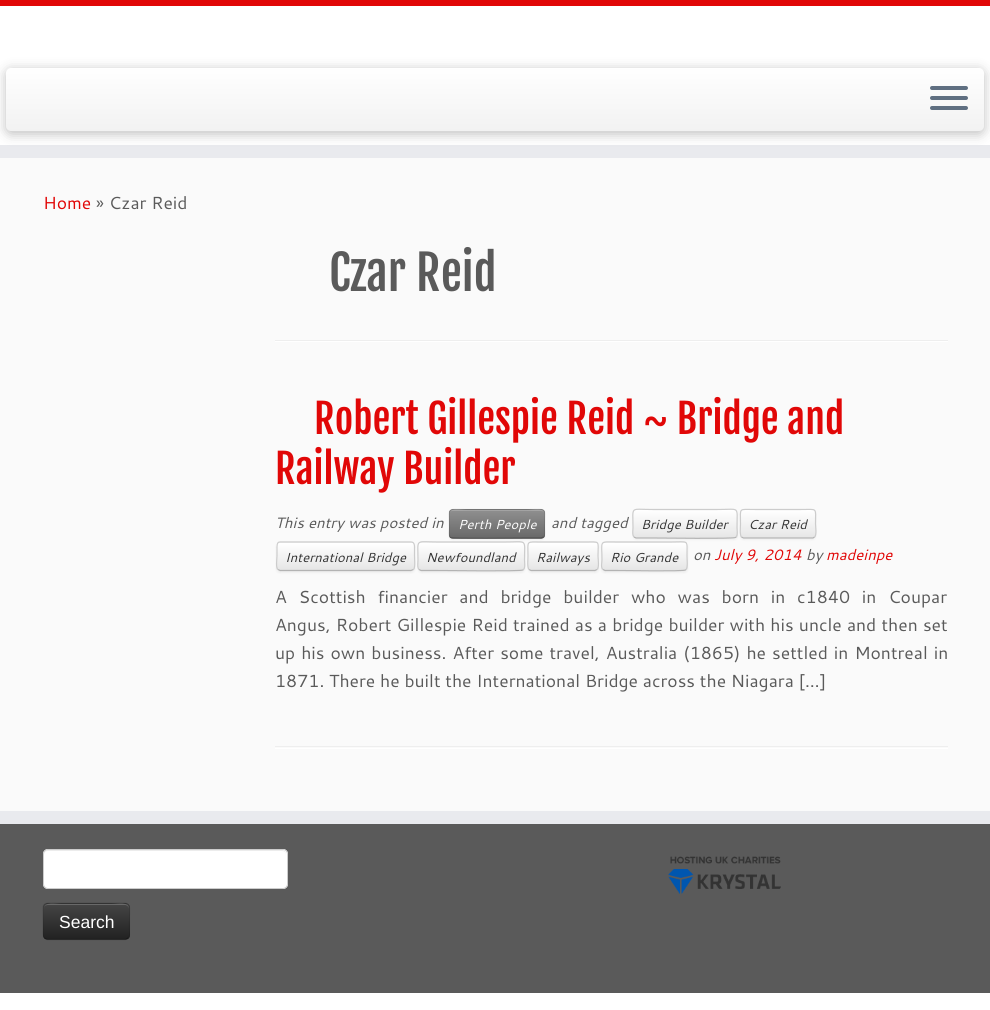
import math
import cairo


def use_color(cr, r, g, b):
  cr.set_source_rgb(r / 255, g / 255, b / 255)

def text(cr, x, y, s, family, size, color, bold=False, italic=False):
  cr.select_font_face(family, cairo.FONT_SLANT_ITALIC if italic else cairo.FONT_SLANT_NORMAL, cairo.FONT_WEIGHT_BOLD if bold else cairo.FONT_WEIGHT_NORMAL)
  cr.set_font_size(size)
  use_color(cr, *color)
  cr.move_to(x, y)
  cr.show_text(s)

def spaced_text(cr, x, y, s, letter, word):
  cr.move_to(x, y)
  for ch in s:
    cr.show_text(ch)
    cr.rel_move_to(letter + word * (ch == ' '), 0)

def box(cr, x, y, w, h, *color):
  use_color(cr, *color)
  cr.rectangle(x, y, w, h)
  cr.fill()

def round_rect(cr, x, y, w, h, r):
  cr.new_sub_path()
  for i, (u, v) in enumerate([(x + w - r, y + h - r), (x + r, y + h - r), (x + r, y + r), (x + w - r, y + r)]):
    cr.arc(u, v, r, i * math.pi / 2, (i + 1) * math.pi / 2)
  cr.close_path()

def shadow(cr, x, y, w, h, r, blur, alpha):
  cr.push_group_with_content(cairo.CONTENT_ALPHA)
  cr.set_operator(cairo.OPERATOR_SOURCE)
  for i in range(15, -16, -2):
    e = blur * i / 6
    if min(w, h) + 2 * e > 0:
      cr.set_source_rgba(0, 0, 0, alpha * math.erfc((i - 1) / 8.5) / 2)
      round_rect(cr, x - e, y - e, w + 2 * e, h + 2 * e, max(0, min(r + e + blur * .6, min(w, h) / 2 + e)))
      cr.fill()
  cr.mask(cr.pop_group())

def picture(cr, path, x, y, w, h):
  cr.save()
  cr.set_source_surface(cairo.ImageSurface.create_from_png(path), x, y)
  cr.rectangle(x, y, w, h)
  cr.fill()
  cr.restore()

def draw(cr):
  use_color(cr, 250, 250, 250)
  cr.paint()
  box(cr, 0, 6, 990, 139, 255, 255, 255)
  box(cr, 0, 0, 990, 6, 225, 7, 7)
  box(cr, 0, 145, 990, 13, 233, 234, 238)
  use_color(cr, 0, 0, 0)
  shadow(cr, 6, 70, 978, 64, 5, 6, 0.25)
  gradient = cairo.LinearGradient(495, 67, 495, 131)
  gradient.add_color_stop_rgba(0, 1, 1, 1, 1)
  gradient.add_color_stop_rgba(1, 0.949, 0.949, 0.949, 1)
  cr.set_source(gradient)
  round_rect(cr, 6, 68, 978, 63, 5)
  cr.fill()
  use_color(cr, 95, 111, 129)
  round_rect(cr, 930, 86, 38, 4, 2)
  cr.fill()
  round_rect(cr, 930, 96, 38, 4, 2)
  cr.fill()
  round_rect(cr, 930, 106, 38, 4, 2)
  cr.fill()
  box(cr, 275, 340, 673, 1, 238, 238, 238)
  box(cr, 275, 341, 673, 1, 255, 255, 255)
  use_color(cr, 0, 0, 0)
  shadow(cr, 449, 510, 96, 30, 4, 1, 0.05)
  use_color(cr, 128, 128, 128)
  round_rect(cr, 449, 509, 96, 30, 4)
  cr.fill()
  cr.save()
  round_rect(cr, 449, 509, 96, 30, 4)
  cr.clip()
  gradient = cairo.LinearGradient(497, 510, 497, 538)
  gradient.add_color_stop_rgba(0, 0.561, 0.561, 0.561, 1)
  gradient.add_color_stop_rgba(1, 0.412, 0.412, 0.412, 1)
  cr.set_source(gradient)
  cr.rectangle(449, 510, 96, 28)
  cr.fill()
  cr.restore()
  cr.set_source_rgba(1, 1, 1, 0.2)
  cr.new_path()
  cr.move_to(452, 511)
  cr.line_to(541, 511)
  cr.curve_to(543, 511, 544, 512, 544, 514)
  cr.curve_to(544, 506, 532, 510, 527, 510)
  cr.line_to(467, 510)
  cr.curve_to(462, 510, 450, 506, 450, 514)
  cr.curve_to(450, 512, 451, 511, 452, 511)
  cr.close_path()
  cr.fill()
  cr.new_path()
  cr.move_to(543.5, 537)
  cr.line_to(541, 538)
  cr.line_to(526.5, 538)
  cr.curve_to(518, 538, 452.5, 539, 450.5, 537.5)
  cr.line_to(450.5, 537)
  cr.set_source_rgba(0, 0, 0, 0.25)
  cr.set_line_width(1.2)
  cr.stroke()
  cr.new_path()
  cr.move_to(450.5, 537)
  cr.curve_to(448, 535, 449.5, 530, 449.5, 527.5)
  cr.curve_to(449.5, 506, 445.5, 509.5, 467.5, 509.5)
  cr.line_to(526.5, 509.5)
  cr.curve_to(548.5, 509.5, 544.5, 506, 544.5, 527.5)
  cr.curve_to(544.5, 530, 545.5, 535, 543.5, 537)
  cr.set_source_rgba(0, 0, 0, 0.1)
  cr.stroke()
  use_color(cr, 0, 0, 0)
  shadow(cr, 633, 510, 105, 30, 4, 1, 0.05)
  use_color(cr, 245, 245, 245)
  round_rect(cr, 633, 509, 105, 30, 4)
  cr.fill()
  cr.save()
  round_rect(cr, 633, 509, 105, 30, 4)
  cr.clip()
  gradient = cairo.LinearGradient(685, 510, 685, 538)
  gradient.add_color_stop_rgba(0, 1, 1, 1, 1)
  gradient.add_color_stop_rgba(1, 0.902, 0.902, 0.902, 1)
  cr.set_source(gradient)
  cr.rectangle(633, 510, 105, 28)
  cr.fill()
  cr.restore()
  cr.new_path()
  cr.move_to(736, 537)
  cr.line_to(735.5, 537.5)
  cr.curve_to(733.5, 539, 661.5, 538, 652.5, 538)
  cr.line_to(636, 538)
  cr.line_to(634, 537)
  use_color(cr, 179, 179, 179)
  cr.stroke()
  cr.new_path()
  cr.move_to(634, 537)
  cr.curve_to(632, 535, 633, 530, 633, 527.5)
  cr.curve_to(633, 505.5, 629.5, 509.5, 652.5, 509.5)
  cr.line_to(717.5, 509.5)
  cr.curve_to(740.5, 509.5, 737, 505.5, 737, 527.5)
  cr.curve_to(737, 530, 738, 535, 736, 537)
  use_color(cr, 204, 204, 204)
  cr.stroke()
  use_color(cr, 0, 0, 0)
  shadow(cr, 740, 510, 76, 30, 4, 1, 0.05)
  use_color(cr, 245, 245, 245)
  round_rect(cr, 740, 509, 76, 30, 4)
  cr.fill()
  cr.save()
  round_rect(cr, 740, 509, 76, 30, 4)
  cr.clip()
  gradient = cairo.LinearGradient(778, 510, 778, 538)
  gradient.add_color_stop_rgba(0, 1, 1, 1, 1)
  gradient.add_color_stop_rgba(1, 0.902, 0.902, 0.902, 1)
  cr.set_source(gradient)
  cr.rectangle(740, 510, 76, 28)
  cr.fill()
  cr.restore()
  cr.new_path()
  cr.move_to(814.5, 537)
  cr.line_to(813, 538)
  cr.line_to(743.5, 538)
  cr.line_to(741.5, 537)
  use_color(cr, 179, 179, 179)
  cr.stroke()
  cr.new_path()
  cr.move_to(741.5, 537)
  cr.curve_to(739.5, 535, 740.5, 526.5, 740.5, 524)
  cr.curve_to(740.5, 507, 738, 509.5, 755, 509.5)
  cr.line_to(801, 509.5)
  cr.curve_to(818, 509.5, 815.5, 507, 815.5, 524)
  cr.curve_to(815.5, 526.5, 817, 535, 814.5, 537)
  use_color(cr, 204, 204, 204)
  cr.stroke()
  use_color(cr, 0, 0, 0)
  shadow(cr, 276, 543, 139, 30, 4, 1, 0.05)
  use_color(cr, 245, 245, 245)
  round_rect(cr, 276, 541, 139, 30, 4)
  cr.fill()
  cr.save()
  round_rect(cr, 276, 541, 139, 30, 4)
  cr.clip()
  gradient = cairo.LinearGradient(346, 543, 346, 570)
  gradient.add_color_stop_rgba(0, 1, 1, 1, 1)
  gradient.add_color_stop_rgba(1, 0.902, 0.902, 0.902, 1)
  cr.set_source(gradient)
  cr.rectangle(276, 543, 139, 27)
  cr.fill()
  cr.restore()
  cr.new_path()
  cr.move_to(413.5, 569.5)
  cr.line_to(411, 570.5)
  cr.line_to(280, 570.5)
  cr.line_to(278, 569.5)
  use_color(cr, 179, 179, 179)
  cr.stroke()
  cr.new_path()
  cr.move_to(278, 569.5)
  cr.curve_to(275.5, 567.5, 277, 559, 277, 556)
  cr.line_to(277, 549)
  cr.curve_to(277, 546.5, 276.5, 542, 280, 542)
  cr.line_to(411, 542)
  cr.curve_to(415, 542, 414.5, 546.5, 414.5, 549)
  cr.line_to(414.5, 556)
  cr.curve_to(414.5, 559, 415.5, 567.5, 413.5, 569.5)
  use_color(cr, 204, 204, 204)
  cr.stroke()
  use_color(cr, 0, 0, 0)
  shadow(cr, 418, 543, 107, 30, 4, 1, 0.05)
  use_color(cr, 245, 245, 245)
  round_rect(cr, 418, 541, 107, 30, 4)
  cr.fill()
  cr.save()
  round_rect(cr, 418, 541, 107, 30, 4)
  cr.clip()
  gradient = cairo.LinearGradient(471, 543, 471, 570)
  gradient.add_color_stop_rgba(0, 1, 1, 1, 1)
  gradient.add_color_stop_rgba(1, 0.902, 0.902, 0.902, 1)
  cr.set_source(gradient)
  cr.rectangle(418, 543, 107, 27)
  cr.fill()
  cr.restore()
  cr.new_path()
  cr.move_to(523.5, 569.5)
  cr.line_to(523, 570)
  cr.curve_to(521, 571.5, 447, 570.5, 438, 570.5)
  cr.line_to(421, 570.5)
  cr.line_to(419, 569.5)
  use_color(cr, 179, 179, 179)
  cr.stroke()
  cr.new_path()
  cr.move_to(419, 569.5)
  cr.curve_to(417, 567.5, 418, 562.5, 418, 560)
  cr.curve_to(418, 538, 414.5, 542, 438, 542)
  cr.line_to(504.5, 542)
  cr.curve_to(528, 542, 524.5, 538, 524.5, 560)
  cr.curve_to(524.5, 562.5, 525.5, 567.5, 523.5, 569.5)
  use_color(cr, 204, 204, 204)
  cr.stroke()
  use_color(cr, 0, 0, 0)
  shadow(cr, 528, 543, 71, 30, 4, 1, 0.05)
  use_color(cr, 245, 245, 245)
  round_rect(cr, 528, 541, 71, 30, 4)
  cr.fill()
  cr.save()
  round_rect(cr, 528, 541, 71, 30, 4)
  cr.clip()
  gradient = cairo.LinearGradient(563, 543, 563, 570)
  gradient.add_color_stop_rgba(0, 1, 1, 1, 1)
  gradient.add_color_stop_rgba(1, 0.902, 0.902, 0.902, 1)
  cr.set_source(gradient)
  cr.rectangle(528, 543, 71, 27)
  cr.fill()
  cr.restore()
  cr.new_path()
  cr.move_to(597, 569.5)
  cr.line_to(595, 570.5)
  cr.line_to(531, 570.5)
  cr.line_to(529, 569.5)
  use_color(cr, 179, 179, 179)
  cr.stroke()
  cr.new_path()
  cr.move_to(529, 569.5)
  cr.curve_to(527, 567.5, 528, 559, 528, 556)
  cr.curve_to(528, 540, 525.5, 542, 542, 542)
  cr.line_to(584.5, 542)
  cr.curve_to(601, 542, 598, 540, 598, 556)
  cr.curve_to(598, 559, 599.5, 567.5, 597, 569.5)
  use_color(cr, 204, 204, 204)
  cr.stroke()
  use_color(cr, 0, 0, 0)
  shadow(cr, 601, 543, 87, 30, 4, 1, 0.05)
  use_color(cr, 245, 245, 245)
  round_rect(cr, 601, 541, 87, 30, 4)
  cr.fill()
  cr.save()
  round_rect(cr, 601, 541, 87, 30, 4)
  cr.clip()
  gradient = cairo.LinearGradient(644, 543, 644, 570)
  gradient.add_color_stop_rgba(0, 1, 1, 1, 1)
  gradient.add_color_stop_rgba(1, 0.902, 0.902, 0.902, 1)
  cr.set_source(gradient)
  cr.rectangle(601, 543, 87, 27)
  cr.fill()
  cr.restore()
  cr.new_path()
  cr.move_to(686, 569.5)
  cr.line_to(685.5, 570)
  cr.curve_to(683.5, 571.5, 625.5, 570.5, 618, 570.5)
  cr.line_to(605, 570.5)
  cr.line_to(603, 569.5)
  use_color(cr, 179, 179, 179)
  cr.stroke()
  cr.new_path()
  cr.move_to(603, 569.5)
  cr.curve_to(600.5, 567.5, 602, 562.5, 602, 560)
  cr.curve_to(602, 539.5, 598, 542, 618, 542)
  cr.line_to(670.5, 542)
  cr.curve_to(689.5, 542, 687, 539, 687, 556)
  cr.curve_to(687, 559, 688, 567.5, 686, 569.5)
  use_color(cr, 204, 204, 204)
  cr.stroke()
  box(cr, 275, 746, 673, 1, 238, 238, 238)
  box(cr, 275, 748, 673, 1, 255, 255, 255)
  box(cr, 0, 824, 990, 169, 90, 90, 90)
  box(cr, 0, 811, 990, 13, 233, 234, 238)
  picture(cr, "img_01.png", 668, 856, 113, 38)
  use_color(cr, 255, 255, 255)
  round_rect(cr, 43, 849, 245, 40, 5)
  cr.fill()
  use_color(cr, 236, 236, 236)
  cr.new_path()
  cr.move_to(48, 851)
  cr.line_to(282, 851)
  cr.curve_to(285, 851, 286, 853, 286, 855)
  cr.line_to(286, 854)
  cr.curve_to(286, 852, 284, 850, 282, 850)
  cr.line_to(48, 850)
  cr.curve_to(46, 850, 44, 852, 44, 854)
  cr.line_to(44, 855)
  cr.curve_to(44, 853, 45, 851, 48, 851)
  cr.close_path()
  cr.fill()
  round_rect(cr, 43.5, 849.5, 244, 39, 4.5)
  use_color(cr, 204, 204, 204)
  cr.set_line_width(1)
  cr.stroke()
  use_color(cr, 54, 54, 54)
  round_rect(cr, 43, 903, 87, 37, 5)
  cr.fill()
  cr.save()
  round_rect(cr, 43, 903, 87, 37, 5)
  cr.clip()
  gradient = cairo.LinearGradient(86, 904, 86, 939)
  gradient.add_color_stop_rgba(0, 0.267, 0.267, 0.267, 1)
  gradient.add_color_stop_rgba(1, 0.133, 0.133, 0.133, 1)
  cr.set_source(gradient)
  cr.rectangle(43, 904, 87, 35)
  cr.fill()
  cr.restore()
  cr.set_source_rgba(1, 1, 1, 0.2)
  cr.new_path()
  cr.move_to(48, 905)
  cr.line_to(125, 905)
  cr.curve_to(127, 905, 129, 907, 129, 909)
  cr.curve_to(129, 901, 117, 904, 112, 904)
  cr.line_to(61, 904)
  cr.curve_to(56, 904, 44, 901, 44, 909)
  cr.curve_to(44, 907, 45, 905, 48, 905)
  cr.close_path()
  cr.fill()
  cr.new_path()
  cr.move_to(128, 938)
  cr.line_to(125.5, 939.5)
  cr.line_to(47, 939.5)
  cr.line_to(44.5, 938)
  cr.set_source_rgba(0, 0, 0, 0.25)
  cr.set_line_width(1.2)
  cr.stroke()
  cr.new_path()
  cr.move_to(44.5, 938)
  cr.curve_to(42.5, 936, 43, 933, 43, 930.5)
  cr.line_to(43, 921)
  cr.curve_to(43, 901, 40, 903, 60.5, 903)
  cr.line_to(112, 903)
  cr.curve_to(132.5, 903, 129.5, 901, 129.5, 921)
  cr.line_to(129.5, 930.5)
  cr.curve_to(129.5, 933, 130, 936, 128, 938)
  cr.set_source_rgba(0, 0, 0, 0.1)
  cr.stroke()
  box(cr, 0, 993, 990, 17, 255, 255, 255)
  text(cr, 43, 209, "Home", "Cantarell", 17.5, (225, 7, 7))
  text(cr, 96, 209, "» Czar Reid", "Cantarell", 17.5, (90, 90, 90))
  text(cr, 329, 291, "Czar Reid", "Fjalla One", 47.5, (90, 90, 90))
  text(cr, 314, 434, "Robert Gillespie Reid ~ Bridge and", "Fjalla One", 40, (225, 7, 7))
  text(cr, 275, 484, "Railway Builder", "Fjalla One", 40, (225, 7, 7))
  text(cr, 275, 528, "This entry was posted in", "Cantarell", 15, (90, 90, 90), italic=True)
  text(cr, 458, 529, "Perth People", "Cantarell", 13.1, (255, 255, 255), italic=True)
  text(cr, 551, 528, "and tagged", "Cantarell", 15, (90, 90, 90), italic=True)
  text(cr, 641, 529, "Bridge Builder", "Cantarell", 13.1, (51, 51, 51), italic=True)
  text(cr, 748, 529, "Czar Reid", "Cantarell", 13.1, (51, 51, 51), italic=True)
  text(cr, 285, 562, "International Bridge", "Cantarell", 13.1, (51, 51, 51), italic=True)
  text(cr, 426, 562, "Newfoundland", "Cantarell", 13.1, (51, 51, 51), italic=True)
  text(cr, 536, 562, "Railways", "Cantarell", 13.1, (51, 51, 51), italic=True)
  text(cr, 610, 562, "Rio Grande", "Cantarell", 13.1, (51, 51, 51), italic=True)
  text(cr, 693, 560, "on", "Cantarell", 15, (90, 90, 90), italic=True)
  text(cr, 714, 560, "July 9, 2014", "Cantarell", 15, (225, 7, 7), italic=True)
  text(cr, 806, 560, "by", "Cantarell", 15, (90, 90, 90), italic=True)
  text(cr, 826, 560, "madeinpe", "Cantarell", 15, (225, 7, 7), italic=True)
  cr.select_font_face("Cantarell")
  cr.set_font_size(17.5)
  use_color(cr, 90, 90, 90)
  spaced_text(cr, 275, 603, "A Scottish financier and bridge builder who was born in c1840 in Coupar", 0, 7)
  spaced_text(cr, 275, 631, "Angus, Robert Gillespie Reid trained as a bridge builder with his uncle and then set", 0, 0.4)
  spaced_text(cr, 275, 659, "up his own business. After some travel, Australia (1865) he settled in Montreal in", 0, 1.25)
  text(cr, 275, 687, "1871. There he built the International Bridge across the Niagara […]", "Cantarell", 17.5, (90, 90, 90))
  text(cr, 59, 928, "Search", "Liberation Sans", 17.5, (255, 255, 255))


surface = cairo.ImageSurface(cairo.FORMAT_RGB24, 990, 1010)
cr = cairo.Context(surface)
options = cairo.FontOptions()
options.set_hint_metrics(cairo.HINT_METRICS_OFF)
options.set_hint_style(cairo.HINT_STYLE_NONE)
cr.set_font_options(options)
cr.set_miter_limit(4)
draw(cr)
surface.write_to_png("out.png")
